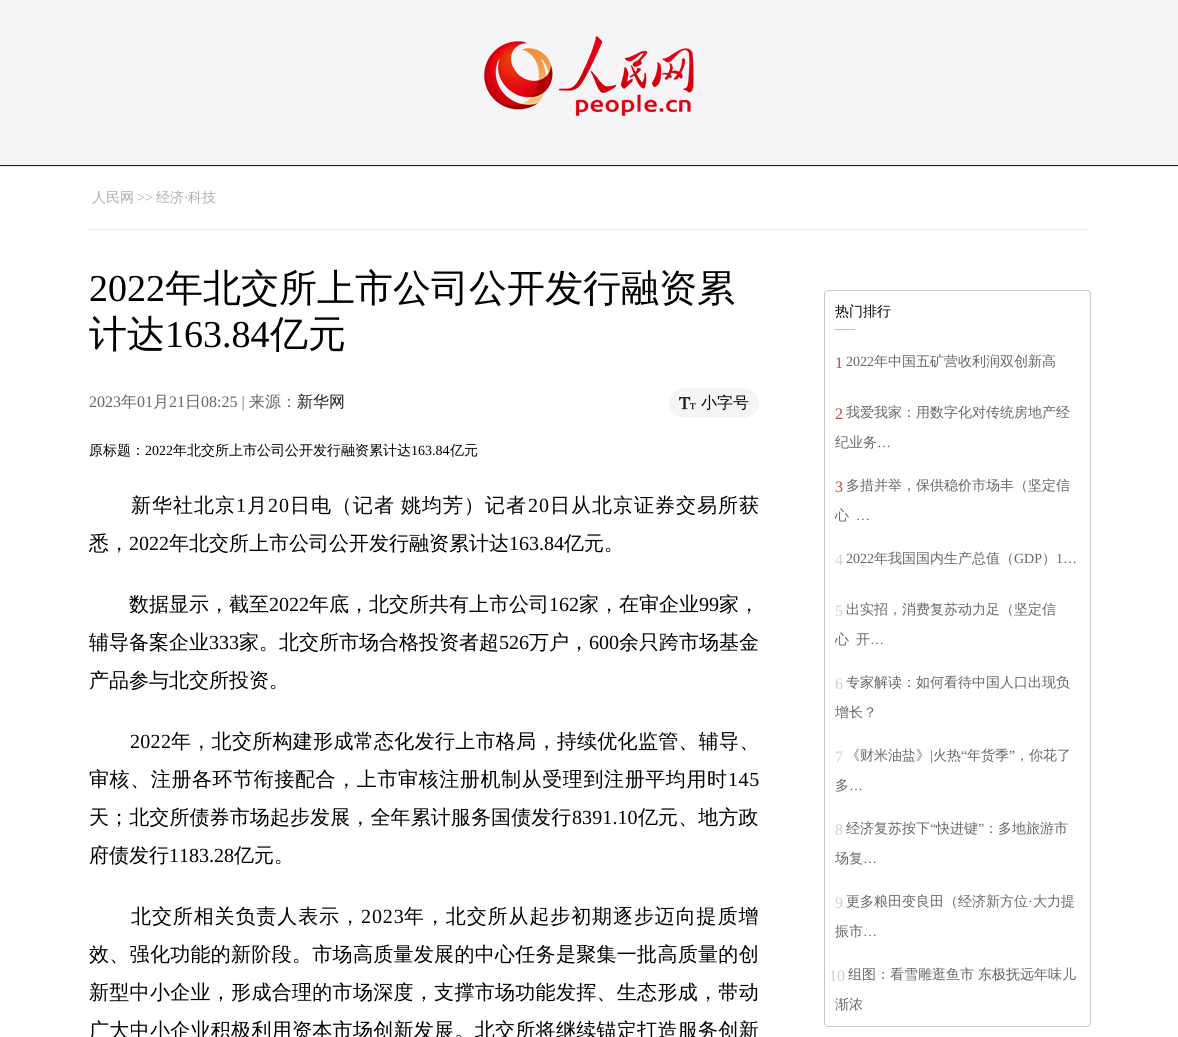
import math
import cairo


def use_color(cr, r, g, b):
  cr.set_source_rgb(r / 255, g / 255, b / 255)

def text(cr, x, y, s, family, size, color, bold=False, italic=False):
  cr.select_font_face(family, cairo.FONT_SLANT_ITALIC if italic else cairo.FONT_SLANT_NORMAL, cairo.FONT_WEIGHT_BOLD if bold else cairo.FONT_WEIGHT_NORMAL)
  cr.set_font_size(size)
  use_color(cr, *color)
  cr.move_to(x, y)
  cr.show_text(s)

def spaced_text(cr, x, y, s, letter, word):
  cr.move_to(x, y)
  for ch in s:
    cr.show_text(ch)
    cr.rel_move_to(letter + word * (ch == ' '), 0)

def box(cr, x, y, w, h, *color):
  use_color(cr, *color)
  cr.rectangle(x, y, w, h)
  cr.fill()

def round_rect(cr, x, y, w, h, r):
  cr.new_sub_path()
  for i, (u, v) in enumerate([(x + w - r, y + h - r), (x + r, y + h - r), (x + r, y + r), (x + w - r, y + r)]):
    cr.arc(u, v, r, i * math.pi / 2, (i + 1) * math.pi / 2)
  cr.close_path()

def picture(cr, path, x, y, w, h):
  cr.save()
  cr.set_source_surface(cairo.ImageSurface.create_from_png(path), x, y)
  cr.rectangle(x, y, w, h)
  cr.fill()
  cr.restore()

def draw(cr):
  use_color(cr, 255, 255, 255)
  cr.paint()
  box(cr, 0, 0, 1178, 165, 245, 245, 247)
  box(cr, 0, 165, 1178, 1, 33, 33, 33)
  picture(cr, "img_01.png", 484, 36, 210, 80)
  box(cr, 0, 166, 1178, 1, 233, 233, 233)
  box(cr, 89, 229, 1000, 1, 236, 236, 236)
  use_color(cr, 245, 245, 247)
  round_rect(cr, 669, 388, 90, 30, 15)
  cr.fill()
  picture(cr, "img_02.png", 679, 397, 17, 13)
  round_rect(cr, 824.5, 290.5, 266, 736, 3.5)
  use_color(cr, 201, 201, 201)
  cr.set_line_width(1)
  cr.stroke()
  box(cr, 835, 329, 20, 1, 193, 193, 193)
  text(cr, 92, 202, "人民网", "WenQuanYi Zen Hei Medium", 14, (173, 173, 173))
  text(cr, 137, 202, ">>", "Liberation Serif", 14, (173, 173, 173))
  text(cr, 156, 202, "经济", "WenQuanYi Zen Hei Medium", 14, (173, 173, 173))
  text(cr, 184, 202, "·", "Liberation Serif", 14, (173, 173, 173))
  text(cr, 188, 202, "科技", "WenQuanYi Zen Hei Medium", 14, (173, 173, 173))
  text(cr, 89, 301, "2022", "Liberation Serif", 38, (0, 0, 0))
  text(cr, 165, 301, "年北交所上市公司公开发行融资累", "WenQuanYi Zen Hei Medium", 38, (0, 0, 0))
  text(cr, 89, 347, "计达", "WenQuanYi Zen Hei Medium", 38, (0, 0, 0))
  text(cr, 165, 347, "163.84", "Liberation Serif", 38, (0, 0, 0))
  text(cr, 270, 347, "亿元", "WenQuanYi Zen Hei Medium", 38, (0, 0, 0))
  text(cr, 89, 407, "2023", "Liberation Serif", 16, (102, 102, 102))
  text(cr, 121, 407, "年", "WenQuanYi Zen Hei Medium", 16, (102, 102, 102))
  text(cr, 137, 407, "01", "Liberation Serif", 16, (102, 102, 102))
  text(cr, 153, 407, "月", "WenQuanYi Zen Hei Medium", 16, (102, 102, 102))
  text(cr, 169, 407, "21", "Liberation Serif", 16, (102, 102, 102))
  text(cr, 185, 407, "日", "WenQuanYi Zen Hei Medium", 16, (102, 102, 102))
  text(cr, 201, 407, "08:25 |", "Liberation Serif", 16, (102, 102, 102))
  text(cr, 249, 407, "来源：", "WenQuanYi Zen Hei Medium", 16, (102, 102, 102))
  text(cr, 297, 407, "新华网", "WenQuanYi Zen Hei Medium", 16, (33, 33, 33))
  text(cr, 701, 408, "小字号", "WenQuanYi Zen Hei Medium", 16, (0, 0, 0))
  text(cr, 89, 455, "原标题：", "WenQuanYi Zen Hei Medium", 14, (0, 0, 0))
  text(cr, 145, 455, "2022", "Liberation Serif", 14, (0, 0, 0))
  text(cr, 173, 455, "年北交所上市公司公开发行融资累计达", "WenQuanYi Zen Hei Medium", 14, (0, 0, 0))
  text(cr, 411, 455, "163.84", "Liberation Serif", 14, (0, 0, 0))
  text(cr, 450, 455, "亿元", "WenQuanYi Zen Hei Medium", 14, (0, 0, 0))
  cr.set_font_size(20)
  spaced_text(cr, 131, 512, "新华社北京", 1, 0)
  cr.select_font_face("Liberation Serif")
  spaced_text(cr, 236, 512, "1", 1, 0)
  cr.select_font_face("WenQuanYi Zen Hei Medium")
  spaced_text(cr, 247, 512, "月", 1, 0)
  cr.select_font_face("Liberation Serif")
  spaced_text(cr, 268, 512, "20", 1, 0)
  cr.select_font_face("WenQuanYi Zen Hei Medium")
  spaced_text(cr, 290, 512, "日电（记者 姚均芳）记者", 1, -1)
  cr.select_font_face("Liberation Serif")
  spaced_text(cr, 528, 512, "20", 1, 0)
  cr.select_font_face("WenQuanYi Zen Hei Medium")
  spaced_text(cr, 550, 512, "日从北京证券交易所获", 1, 0)
  text(cr, 89, 550, "悉，", "WenQuanYi Zen Hei Medium", 20, (0, 0, 0))
  text(cr, 129, 550, "2022", "Liberation Serif", 20, (0, 0, 0))
  text(cr, 169, 550, "年北交所上市公司公开发行融资累计达", "WenQuanYi Zen Hei Medium", 20, (0, 0, 0))
  text(cr, 509, 550, "163.84", "Liberation Serif", 20, (0, 0, 0))
  text(cr, 564, 550, "亿元。", "WenQuanYi Zen Hei Medium", 20, (0, 0, 0))
  text(cr, 129, 611, "数据显示，截至", "WenQuanYi Zen Hei Medium", 20, (0, 0, 0))
  text(cr, 269, 611, "2022", "Liberation Serif", 20, (0, 0, 0))
  text(cr, 309, 611, "年底，北交所共有上市公司", "WenQuanYi Zen Hei Medium", 20, (0, 0, 0))
  text(cr, 549, 611, "162", "Liberation Serif", 20, (0, 0, 0))
  text(cr, 579, 611, "家，在审企业", "WenQuanYi Zen Hei Medium", 20, (0, 0, 0))
  text(cr, 699, 611, "99", "Liberation Serif", 20, (0, 0, 0))
  text(cr, 719, 611, "家，", "WenQuanYi Zen Hei Medium", 20, (0, 0, 0))
  text(cr, 89, 649, "辅导备案企业", "WenQuanYi Zen Hei Medium", 20, (0, 0, 0))
  text(cr, 209, 649, "333", "Liberation Serif", 20, (0, 0, 0))
  text(cr, 239, 649, "家。北交所市场合格投资者超", "WenQuanYi Zen Hei Medium", 20, (0, 0, 0))
  text(cr, 499, 649, "526", "Liberation Serif", 20, (0, 0, 0))
  text(cr, 529, 649, "万户，", "WenQuanYi Zen Hei Medium", 20, (0, 0, 0))
  text(cr, 589, 649, "600", "Liberation Serif", 20, (0, 0, 0))
  text(cr, 619, 649, "余只跨市场基金", "WenQuanYi Zen Hei Medium", 20, (0, 0, 0))
  text(cr, 89, 687, "产品参与北交所投资。", "WenQuanYi Zen Hei Medium", 20, (0, 0, 0))
  cr.select_font_face("Liberation Serif")
  spaced_text(cr, 130, 748, "2022", 0.3, 0)
  cr.select_font_face("WenQuanYi Zen Hei Medium")
  spaced_text(cr, 171, 748, "年，北交所构建形成常态化发行上市格局，持续优化监管、辅导、", 0.3, 0)
  spaced_text(cr, 89, 786, "审核、注册各环节衔接配合，上市审核注册机制从受理到注册平均用时", 0.6, 0)
  cr.select_font_face("Liberation Serif")
  spaced_text(cr, 728, 786, "145", 0.6, 0)
  cr.select_font_face("WenQuanYi Zen Hei Medium")
  spaced_text(cr, 89, 824, "天；北交所债券市场起步发展，全年累计服务国债发行", 0.1, 0)
  cr.select_font_face("Liberation Serif")
  spaced_text(cr, 572, 824, "8391.10", 0.1, 0)
  cr.select_font_face("WenQuanYi Zen Hei Medium")
  spaced_text(cr, 638, 824, "亿元、地方政", 0.1, 0)
  text(cr, 89, 862, "府债发行", "WenQuanYi Zen Hei Medium", 20, (0, 0, 0))
  text(cr, 169, 862, "1183.28", "Liberation Serif", 20, (0, 0, 0))
  text(cr, 234, 862, "亿元。", "WenQuanYi Zen Hei Medium", 20, (0, 0, 0))
  spaced_text(cr, 131, 923, "北交所相关负责人表示，", 0.9, 0)
  cr.select_font_face("Liberation Serif")
  spaced_text(cr, 361, 923, "2023", 0.9, 0)
  cr.select_font_face("WenQuanYi Zen Hei Medium")
  spaced_text(cr, 404, 923, "年，北交所从起步初期逐步迈向提质增", 0.9, 0)
  spaced_text(cr, 89, 961, "效、强化功能的新阶段。市场高质量发展的中心任务是聚集一批高质量的创", 0.3, 0)
  spaced_text(cr, 89, 999, "新型中小企业，形成合理的市场深度，支撑市场功能发挥、生态形成，带动", 0.3, 0)
  spaced_text(cr, 89, 1037, "广大中小企业积极利用资本市场创新发展。北交所将继续锚定打造服务创新", 0.3, 0)
  text(cr, 835, 316, "热门排行", "WenQuanYi Zen Hei Medium", 14, (0, 0, 0))
  text(cr, 835, 368, "1", "Liberation Serif", 16, (197, 66, 66))
  text(cr, 846, 366, "2022", "Liberation Serif", 14, (102, 102, 102))
  text(cr, 874, 366, "年中国五矿营收利润双创新高", "WenQuanYi Zen Hei Medium", 14, (102, 102, 102))
  text(cr, 835, 419, "2", "Liberation Serif", 16, (197, 66, 66))
  text(cr, 846, 417, "我爱我家：用数字化对传统房地产经", "WenQuanYi Zen Hei Medium", 14, (102, 102, 102))
  text(cr, 835, 447, "纪业务", "WenQuanYi Zen Hei Medium", 14, (102, 102, 102))
  text(cr, 877, 447, "…", "Liberation Serif", 14, (102, 102, 102))
  text(cr, 835, 492, "3", "Liberation Serif", 16, (197, 66, 66))
  text(cr, 846, 490, "多措并举，保供稳价市场丰（坚定信", "WenQuanYi Zen Hei Medium", 14, (102, 102, 102))
  text(cr, 835, 520, "心", "WenQuanYi Zen Hei Medium", 14, (102, 102, 102))
  text(cr, 856, 520, "…", "Liberation Serif", 14, (102, 102, 102))
  text(cr, 835, 565, "4", "Liberation Serif", 16, (208, 208, 208))
  text(cr, 846, 563, "2022", "Liberation Serif", 14, (102, 102, 102))
  text(cr, 874, 563, "年我国国内生产总值（", "WenQuanYi Zen Hei Medium", 14, (102, 102, 102))
  text(cr, 1014, 563, "GDP", "Liberation Serif", 14, (102, 102, 102))
  text(cr, 1042, 563, "）", "WenQuanYi Zen Hei Medium", 14, (102, 102, 102))
  text(cr, 1056, 563, "1…", "Liberation Serif", 14, (102, 102, 102))
  text(cr, 835, 616, "5", "Liberation Serif", 16, (208, 208, 208))
  text(cr, 846, 614, "出实招，消费复苏动力足（坚定信", "WenQuanYi Zen Hei Medium", 14, (102, 102, 102))
  text(cr, 835, 644, "心", "WenQuanYi Zen Hei Medium", 14, (102, 102, 102))
  text(cr, 856, 644, "开", "WenQuanYi Zen Hei Medium", 14, (102, 102, 102))
  text(cr, 870, 644, "…", "Liberation Serif", 14, (102, 102, 102))
  text(cr, 835, 689, "6", "Liberation Serif", 16, (208, 208, 208))
  text(cr, 846, 687, "专家解读：如何看待中国人口出现负", "WenQuanYi Zen Hei Medium", 14, (102, 102, 102))
  text(cr, 835, 717, "增长？", "WenQuanYi Zen Hei Medium", 14, (102, 102, 102))
  text(cr, 835, 762, "7", "Liberation Serif", 16, (208, 208, 208))
  text(cr, 846, 760, "《财米油盐》", "WenQuanYi Zen Hei Medium", 14, (102, 102, 102))
  text(cr, 930, 760, "|", "Liberation Serif", 14, (102, 102, 102))
  text(cr, 933, 760, "火热", "WenQuanYi Zen Hei Medium", 14, (102, 102, 102))
  text(cr, 961, 760, "“", "Liberation Serif", 14, (102, 102, 102))
  text(cr, 967, 760, "年货季", "WenQuanYi Zen Hei Medium", 14, (102, 102, 102))
  text(cr, 1009, 760, "”", "Liberation Serif", 14, (102, 102, 102))
  text(cr, 1015, 760, "，你花了", "WenQuanYi Zen Hei Medium", 14, (102, 102, 102))
  text(cr, 835, 790, "多", "WenQuanYi Zen Hei Medium", 14, (102, 102, 102))
  text(cr, 849, 790, "…", "Liberation Serif", 14, (102, 102, 102))
  text(cr, 835, 835, "8", "Liberation Serif", 16, (208, 208, 208))
  text(cr, 846, 833, "经济复苏按下", "WenQuanYi Zen Hei Medium", 14, (102, 102, 102))
  text(cr, 930, 833, "“", "Liberation Serif", 14, (102, 102, 102))
  text(cr, 936, 833, "快进键", "WenQuanYi Zen Hei Medium", 14, (102, 102, 102))
  text(cr, 978, 833, "”", "Liberation Serif", 14, (102, 102, 102))
  text(cr, 984, 833, "：多地旅游市", "WenQuanYi Zen Hei Medium", 14, (102, 102, 102))
  text(cr, 835, 863, "场复", "WenQuanYi Zen Hei Medium", 14, (102, 102, 102))
  text(cr, 863, 863, "…", "Liberation Serif", 14, (102, 102, 102))
  text(cr, 835, 908, "9", "Liberation Serif", 16, (208, 208, 208))
  text(cr, 846, 906, "更多粮田变良田（经济新方位", "WenQuanYi Zen Hei Medium", 14, (102, 102, 102))
  text(cr, 1028, 906, "·", "Liberation Serif", 14, (102, 102, 102))
  text(cr, 1033, 906, "大力提", "WenQuanYi Zen Hei Medium", 14, (102, 102, 102))
  text(cr, 835, 936, "振市", "WenQuanYi Zen Hei Medium", 14, (102, 102, 102))
  text(cr, 863, 936, "…", "Liberation Serif", 14, (102, 102, 102))
  text(cr, 829, 981, "10", "Liberation Serif", 16, (208, 208, 208))
  text(cr, 848, 979, "组图：看雪雕逛鱼市", "WenQuanYi Zen Hei Medium", 14, (102, 102, 102))
  text(cr, 978, 979, "东极抚远年味儿", "WenQuanYi Zen Hei Medium", 14, (102, 102, 102))
  text(cr, 835, 1009, "渐浓", "WenQuanYi Zen Hei Medium", 14, (102, 102, 102))


surface = cairo.ImageSurface(cairo.FORMAT_RGB24, 1178, 1037)
cr = cairo.Context(surface)
options = cairo.FontOptions()
options.set_hint_metrics(cairo.HINT_METRICS_OFF)
options.set_hint_style(cairo.HINT_STYLE_NONE)
cr.set_font_options(options)
cr.set_miter_limit(4)
draw(cr)
surface.write_to_png("out.png")
